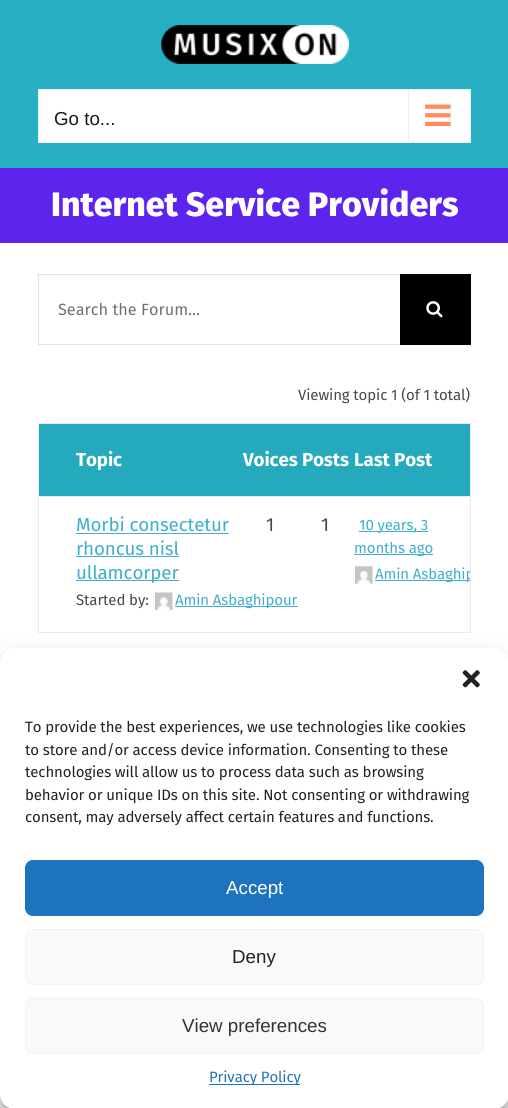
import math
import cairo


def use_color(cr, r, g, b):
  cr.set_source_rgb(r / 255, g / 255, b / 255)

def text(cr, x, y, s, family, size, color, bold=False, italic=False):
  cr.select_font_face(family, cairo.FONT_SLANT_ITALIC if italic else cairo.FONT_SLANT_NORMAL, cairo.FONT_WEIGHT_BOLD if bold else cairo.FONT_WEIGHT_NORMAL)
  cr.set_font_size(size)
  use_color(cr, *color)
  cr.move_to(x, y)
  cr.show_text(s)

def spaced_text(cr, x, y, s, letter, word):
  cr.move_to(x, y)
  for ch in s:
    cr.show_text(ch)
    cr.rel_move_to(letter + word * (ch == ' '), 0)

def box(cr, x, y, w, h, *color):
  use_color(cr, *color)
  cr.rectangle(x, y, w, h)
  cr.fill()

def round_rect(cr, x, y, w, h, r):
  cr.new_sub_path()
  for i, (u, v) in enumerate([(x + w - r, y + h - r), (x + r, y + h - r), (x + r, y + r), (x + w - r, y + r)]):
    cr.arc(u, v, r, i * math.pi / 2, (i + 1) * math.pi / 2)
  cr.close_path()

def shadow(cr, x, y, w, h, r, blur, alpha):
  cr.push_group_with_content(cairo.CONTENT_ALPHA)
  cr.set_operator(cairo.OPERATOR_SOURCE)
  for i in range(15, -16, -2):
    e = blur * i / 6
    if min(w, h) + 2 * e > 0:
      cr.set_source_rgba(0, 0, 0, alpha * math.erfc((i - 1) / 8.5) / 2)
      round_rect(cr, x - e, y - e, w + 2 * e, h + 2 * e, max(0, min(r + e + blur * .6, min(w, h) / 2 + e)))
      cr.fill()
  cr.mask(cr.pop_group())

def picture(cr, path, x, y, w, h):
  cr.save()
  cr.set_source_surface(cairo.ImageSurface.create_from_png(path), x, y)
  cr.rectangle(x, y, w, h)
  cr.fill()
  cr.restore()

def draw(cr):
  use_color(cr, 255, 255, 255)
  cr.paint()
  box(cr, 0, 0, 508, 168, 40, 175, 195)
  picture(cr, "img_01.png", 161, 25, 188, 39)
  use_color(cr, 255, 255, 255)
  cr.rectangle(38.5, 89.5, 432, 53)
  cr.fill_preserve()
  use_color(cr, 238, 238, 238)
  cr.set_line_width(1)
  cr.stroke()
  box(cr, 408, 90, 1, 51, 238, 238, 238)
  picture(cr, "img_02.png", 425, 104, 26, 22)
  box(cr, 0, 168, 508, 75, 93, 36, 237)
  box(cr, 38, 274, 362, 1, 226, 226, 226)
  box(cr, 38, 344, 362, 1, 226, 226, 226)
  box(cr, 38, 274, 1, 71, 226, 226, 226)
  box(cr, 400, 274, 71, 71, 0, 0, 0)
  picture(cr, "img_03.png", 426, 301, 17, 17)
  cr.rectangle(38.5, 423.5, 432, 209)
  use_color(cr, 234, 234, 234)
  cr.stroke()
  box(cr, 39, 424, 431, 72, 37, 169, 189)
  box(cr, 39, 496, 431, 1, 234, 234, 234)
  box(cr, 76, 533, 153, 1, 63, 175, 204)
  box(cr, 76, 556, 103, 1, 63, 175, 204)
  box(cr, 76, 580, 103, 1, 63, 175, 204)
  picture(cr, "img_04.png", 155, 592, 18, 18)
  box(cr, 175, 606, 123, 1, 63, 175, 204)
  box(cr, 359, 531, 69, 1, 63, 175, 204)
  box(cr, 354, 554, 79, 1, 63, 175, 204)
  picture(cr, "img_05.png", 355, 566, 18, 18)
  box(cr, 375, 580, 95, 1, 63, 175, 204)
  use_color(cr, 0, 0, 0)
  shadow(cr, 0, 655, 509, 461, 15, 4, 0.23)
  shadow(cr, 0, 660, 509, 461, 15, 12.5, 0.19)
  use_color(cr, 255, 255, 255)
  round_rect(cr, 0, 648, 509, 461, 15)
  cr.fill()
  picture(cr, "img_06.png", 462, 670, 18, 18)
  use_color(cr, 30, 115, 190)
  round_rect(cr, 25.5, 860.5, 458, 55, 7.5)
  cr.fill_preserve()
  cr.stroke()
  use_color(cr, 249, 249, 249)
  round_rect(cr, 25.5, 929.5, 458, 55, 7.5)
  cr.fill_preserve()
  use_color(cr, 242, 242, 242)
  cr.stroke()
  use_color(cr, 249, 249, 249)
  round_rect(cr, 25.5, 998.5, 458, 55, 7.5)
  cr.fill_preserve()
  use_color(cr, 242, 242, 242)
  cr.stroke()
  box(cr, 209, 1084, 91, 1, 30, 115, 190)
  text(cr, 54, 125, "Go to...", "Liberation Sans", 18.75, (25, 25, 25))
  text(cr, 51, 216, "Internet Service Providers", "Fira Sans ExtraBold", 33.9, (255, 255, 255))
  text(cr, 58, 315, "Search the Forum...", "Fira Sans", 16.25, (112, 112, 112))
  cr.set_font_size(15)
  use_color(cr, 73, 73, 73)
  spaced_text(cr, 298, 400, "Viewing topic 1 (of 1 total)", -0.12, 0)
  cr.select_font_face("Fira Sans", cairo.FONT_SLANT_NORMAL, cairo.FONT_WEIGHT_BOLD)
  cr.set_font_size(18.75)
  use_color(cr, 255, 255, 255)
  spaced_text(cr, 76, 466, "Topic", -0.12, 0)
  spaced_text(cr, 243, 466, "Voices Posts", -0.12, 0)
  spaced_text(cr, 354, 466, "Last Post", -0.12, 0)
  cr.select_font_face("Fira Sans")
  use_color(cr, 63, 175, 204)
  spaced_text(cr, 76, 531, "Morbi consectetur", -0.12, 0)
  spaced_text(cr, 76, 555, "rhoncus nisl", -0.12, 0)
  spaced_text(cr, 76, 579, "ullamcorper", -0.12, 0)
  cr.set_font_size(15)
  use_color(cr, 73, 73, 73)
  spaced_text(cr, 76, 605, "Started by:", -0.12, 0)
  use_color(cr, 63, 175, 204)
  spaced_text(cr, 175, 605, "Amin Asbaghipour", -0.12, 0)
  cr.set_font_size(18.75)
  use_color(cr, 73, 73, 73)
  spaced_text(cr, 266, 531, "1", -0.12, 0)
  spaced_text(cr, 321, 531, "1", -0.12, 0)
  cr.set_font_size(15)
  use_color(cr, 63, 175, 204)
  spaced_text(cr, 359, 530, "10 years, 3", -0.12, 0)
  spaced_text(cr, 354, 553, "months ago", -0.12, 0)
  cr.save()
  cr.rectangle(39, 498, 431, 133)
  cr.clip()
  spaced_text(cr, 375, 579, "Amin Asbaghip", -0.12, 0)
  cr.restore()
  use_color(cr, 34, 34, 34)
  spaced_text(cr, 25, 732, "To provide the best experiences, we use technologies like cookies", -0.12, 0)
  spaced_text(cr, 25, 755, "to store and/or access device information. Consenting to these", -0.12, 0)
  spaced_text(cr, 25, 777, "technologies will allow us to process data such as browsing", -0.12, 0)
  spaced_text(cr, 25, 800, "behavior or unique IDs on this site. Not consenting or withdrawing", -0.12, 0)
  spaced_text(cr, 25, 822, "consent, may adversely affect certain features and functions.", -0.12, 0)
  text(cr, 226, 894, "Accept", "Liberation Sans", 18.75, (255, 255, 255))
  text(cr, 232, 963, "Deny", "Liberation Sans", 18.75, (34, 34, 34))
  text(cr, 182, 1032, "View preferences", "Liberation Sans", 18.75, (51, 51, 51))
  cr.select_font_face("Fira Sans")
  cr.set_font_size(15)
  use_color(cr, 30, 115, 190)
  spaced_text(cr, 209, 1082, "Privacy Policy", -0.12, 0)


surface = cairo.ImageSurface(cairo.FORMAT_RGB24, 508, 1108)
cr = cairo.Context(surface)
options = cairo.FontOptions()
options.set_hint_metrics(cairo.HINT_METRICS_OFF)
options.set_hint_style(cairo.HINT_STYLE_NONE)
cr.set_font_options(options)
cr.set_miter_limit(4)
draw(cr)
surface.write_to_png("out.png")
